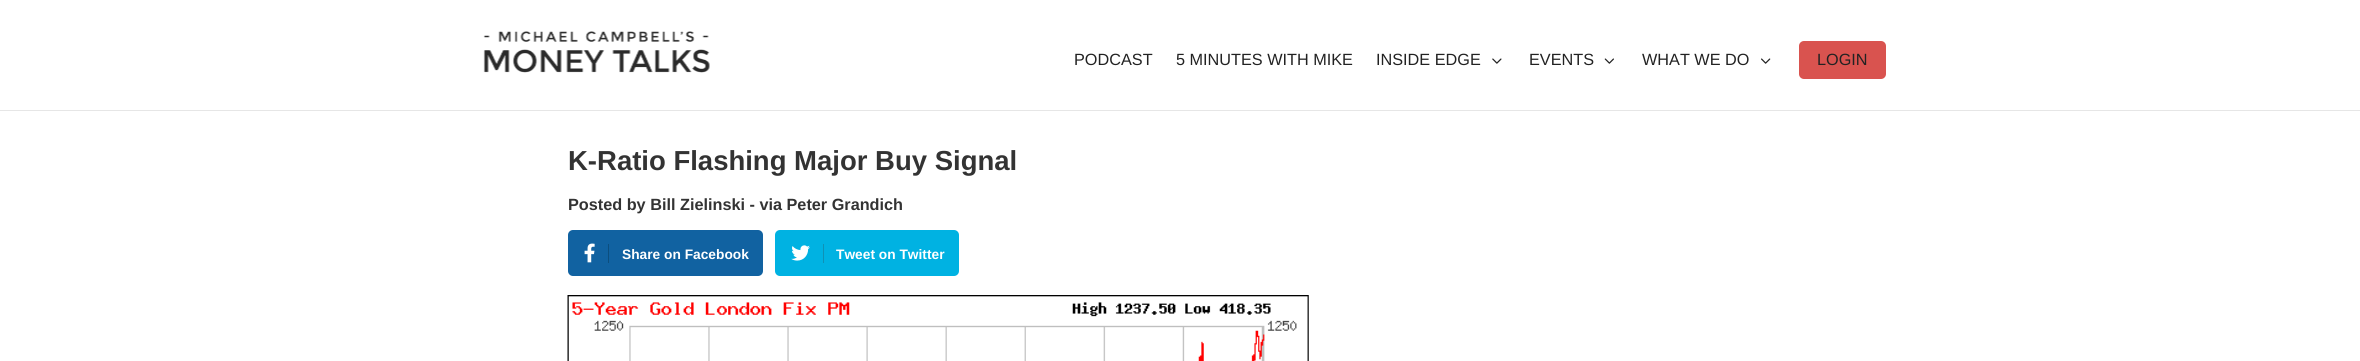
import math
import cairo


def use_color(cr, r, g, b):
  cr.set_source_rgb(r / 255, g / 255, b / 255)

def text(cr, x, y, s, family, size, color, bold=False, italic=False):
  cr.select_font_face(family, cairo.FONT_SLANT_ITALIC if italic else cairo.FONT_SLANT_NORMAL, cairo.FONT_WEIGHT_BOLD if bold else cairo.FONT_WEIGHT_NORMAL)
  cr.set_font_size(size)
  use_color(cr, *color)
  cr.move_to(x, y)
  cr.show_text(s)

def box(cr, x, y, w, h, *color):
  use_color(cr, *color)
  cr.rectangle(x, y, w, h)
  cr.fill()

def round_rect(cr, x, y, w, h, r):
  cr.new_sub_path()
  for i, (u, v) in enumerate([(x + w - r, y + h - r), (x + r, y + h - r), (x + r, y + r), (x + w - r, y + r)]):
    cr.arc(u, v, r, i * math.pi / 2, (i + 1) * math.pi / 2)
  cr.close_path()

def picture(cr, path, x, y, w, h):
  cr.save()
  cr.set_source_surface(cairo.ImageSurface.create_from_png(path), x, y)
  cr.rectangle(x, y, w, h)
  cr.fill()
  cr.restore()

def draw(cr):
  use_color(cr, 255, 255, 255)
  cr.paint()
  box(cr, 0, 110, 2360, 1, 230, 230, 230)
  picture(cr, "img_01.png", 483, 31, 227, 42)
  picture(cr, "img_02.png", 1492, 58, 10, 6)
  picture(cr, "img_03.png", 1604, 58, 10, 6)
  picture(cr, "img_04.png", 1761, 58, 10, 6)
  use_color(cr, 217, 83, 79)
  round_rect(cr, 1799, 41, 87, 38, 5)
  cr.fill()
  use_color(cr, 17, 98, 161)
  round_rect(cr, 568, 230, 195, 46, 5)
  cr.fill()
  picture(cr, "img_05.png", 584, 243, 11, 20)
  box(cr, 608, 244, 1, 19, 12, 78, 126)
  use_color(cr, 0, 178, 226)
  round_rect(cr, 775, 230, 184, 46, 5)
  cr.fill()
  picture(cr, "img_06.png", 791, 245, 19, 16)
  box(cr, 823, 244, 1, 19, 15, 145, 181)
  picture(cr, "img_07.png", 567, 295, 742, 66)
  text(cr, 1074, 65, "PODCAST", "Liberation Sans", 16.25, (34, 34, 34))
  text(cr, 1176, 65, "5 MINUTES WITH MIKE", "Liberation Sans", 16.25, (34, 34, 34))
  text(cr, 1376, 65, "INSIDE EDGE", "Liberation Sans", 16.25, (34, 34, 34))
  text(cr, 1529, 65, "EVENTS", "Liberation Sans", 16.25, (34, 34, 34))
  text(cr, 1642, 65, "WHAT WE DO", "Liberation Sans", 16.25, (34, 34, 34))
  text(cr, 1817, 65, "LOGIN", "Liberation Sans", 16.25, (34, 34, 34))
  text(cr, 568, 170, "K-Ratio Flashing Major Buy Signal", "Liberation Sans", 27.5, (51, 51, 51), bold=True)
  text(cr, 568, 210, "Posted by Bill Zielinski - via Peter Grandich", "Liberation Sans", 16.25, (51, 51, 51), bold=True)
  text(cr, 622, 259, "Share on Facebook", "Liberation Sans", 13.75, (255, 255, 255), bold=True)
  text(cr, 836, 259, "Tweet on Twitter", "Liberation Sans", 13.75, (255, 255, 255), bold=True)


surface = cairo.ImageSurface(cairo.FORMAT_RGB24, 2360, 361)
cr = cairo.Context(surface)
options = cairo.FontOptions()
options.set_hint_metrics(cairo.HINT_METRICS_OFF)
options.set_hint_style(cairo.HINT_STYLE_NONE)
cr.set_font_options(options)
cr.set_miter_limit(4)
draw(cr)
surface.write_to_png("out.png")
